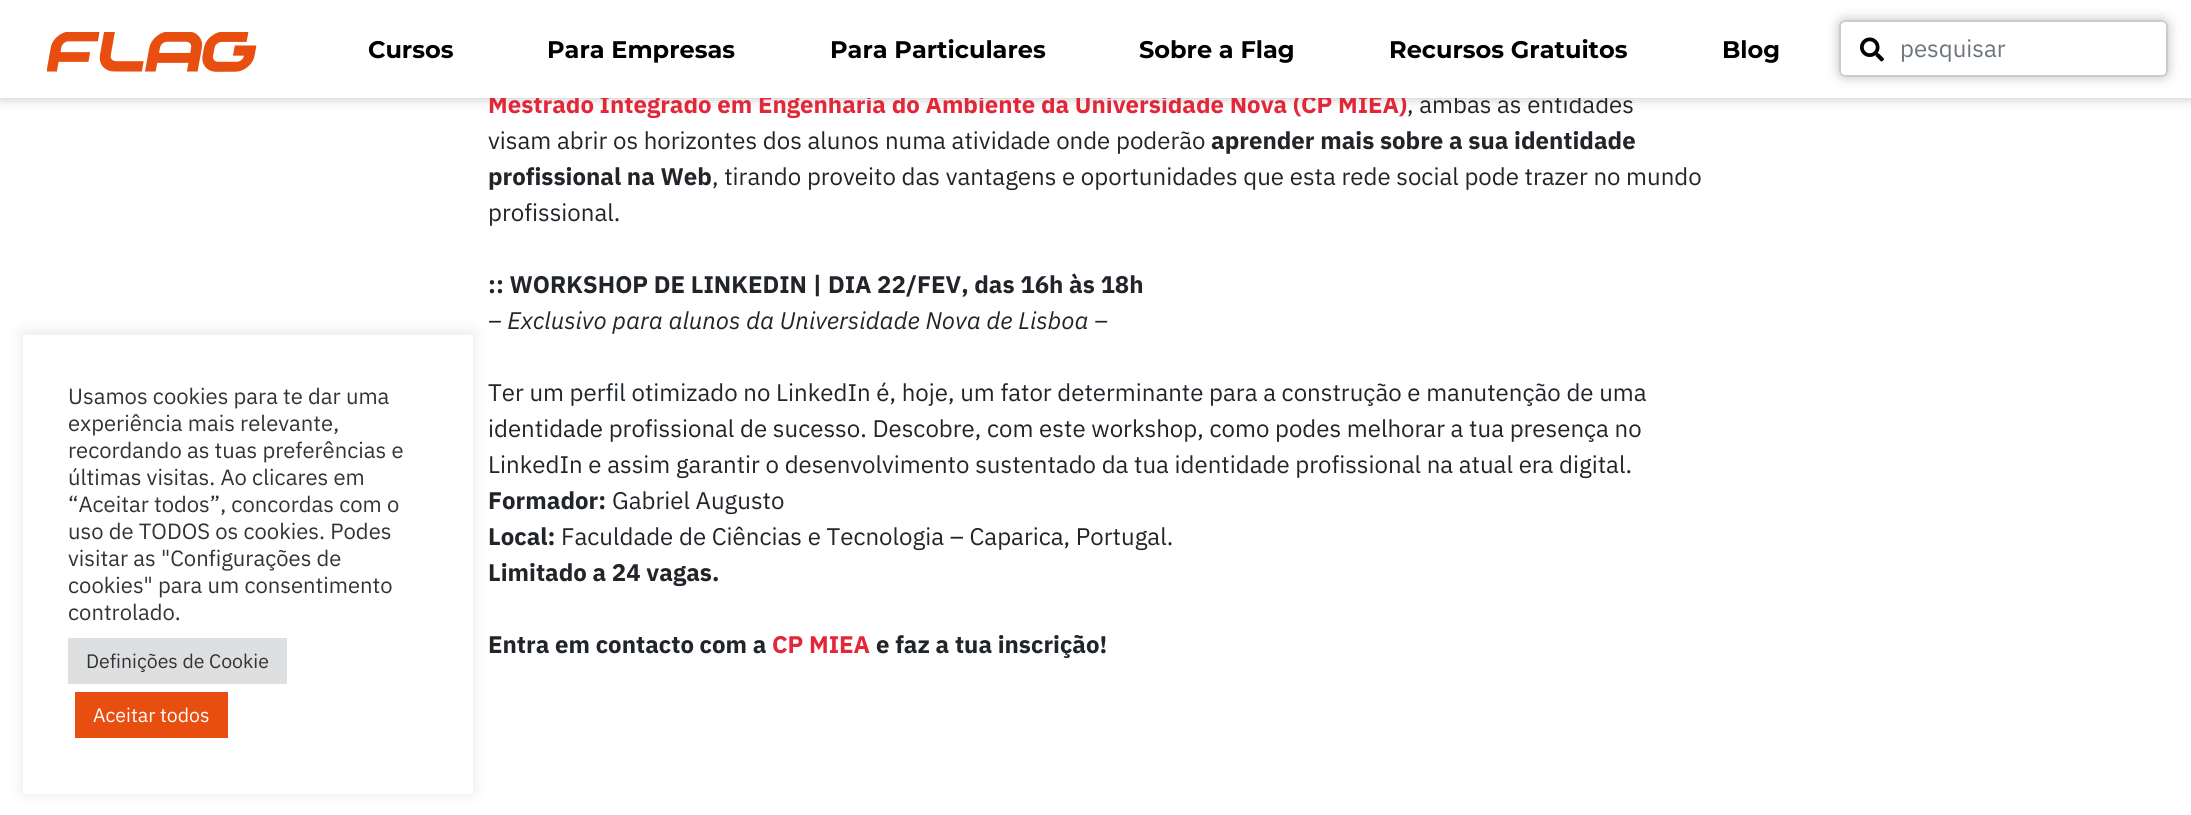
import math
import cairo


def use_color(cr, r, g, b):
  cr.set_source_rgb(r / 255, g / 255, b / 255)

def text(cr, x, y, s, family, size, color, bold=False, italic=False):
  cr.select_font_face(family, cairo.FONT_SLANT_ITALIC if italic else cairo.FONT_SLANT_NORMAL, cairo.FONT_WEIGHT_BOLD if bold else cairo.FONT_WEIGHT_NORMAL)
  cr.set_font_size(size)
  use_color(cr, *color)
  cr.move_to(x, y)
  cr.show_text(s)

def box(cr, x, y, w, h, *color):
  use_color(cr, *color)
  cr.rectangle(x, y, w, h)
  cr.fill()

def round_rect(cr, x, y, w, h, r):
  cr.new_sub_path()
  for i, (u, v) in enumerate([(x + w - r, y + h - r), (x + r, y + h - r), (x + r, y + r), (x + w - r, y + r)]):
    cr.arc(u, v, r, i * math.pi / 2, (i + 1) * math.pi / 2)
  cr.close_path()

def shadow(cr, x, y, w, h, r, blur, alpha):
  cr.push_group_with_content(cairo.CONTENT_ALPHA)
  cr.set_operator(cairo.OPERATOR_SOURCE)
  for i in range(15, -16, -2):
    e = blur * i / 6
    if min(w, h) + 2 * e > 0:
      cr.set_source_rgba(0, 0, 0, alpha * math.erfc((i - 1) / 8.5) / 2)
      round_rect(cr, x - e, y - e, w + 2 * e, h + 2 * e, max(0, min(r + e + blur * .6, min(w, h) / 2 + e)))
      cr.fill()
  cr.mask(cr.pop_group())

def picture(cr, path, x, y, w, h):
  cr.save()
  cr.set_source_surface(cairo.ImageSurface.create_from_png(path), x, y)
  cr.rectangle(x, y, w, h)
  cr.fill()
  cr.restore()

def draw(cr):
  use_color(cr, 255, 255, 255)
  cr.paint()
  use_color(cr, 172, 171, 171)
  shadow(cr, 23, 333, 450, 459, 0, 7.5, 0.3)
  box(cr, 23, 335, 450, 459, 255, 255, 255)
  box(cr, 68, 638, 219, 46, 222, 223, 224)
  box(cr, 75, 692, 153, 46, 232, 78, 15)
  use_color(cr, 0, 0, 0)
  shadow(cr, 0, 0, 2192, 98, 0, 6, 0.25)
  text(cr, 68, 404, "Usamos cookies para te dar uma", "IBM Plex Sans", 22, (51, 51, 51))
  text(cr, 68, 431, "experiência mais relevante,", "IBM Plex Sans", 22, (51, 51, 51))
  text(cr, 68, 458, "recordando as tuas preferências e", "IBM Plex Sans", 22, (51, 51, 51))
  text(cr, 68, 485, "últimas visitas. Ao clicares em", "IBM Plex Sans", 22, (51, 51, 51))
  text(cr, 68, 512, "“Aceitar todos”, concordas com o", "IBM Plex Sans", 22, (51, 51, 51))
  text(cr, 68, 539, "uso de TODOS os cookies. Podes", "IBM Plex Sans", 22, (51, 51, 51))
  text(cr, 68, 566, "visitar as \"Configurações de", "IBM Plex Sans", 22, (51, 51, 51))
  text(cr, 68, 593, "cookies\" para um consentimento", "IBM Plex Sans", 22, (51, 51, 51))
  text(cr, 68, 620, "controlado.", "IBM Plex Sans", 22, (51, 51, 51))
  text(cr, 86, 668, "Definições de Cookie", "IBM Plex Sans", 19.5, (51, 51, 51))
  text(cr, 93, 722, "Aceitar todos", "IBM Plex Sans", 19.5, (255, 255, 255))
  text(cr, 488, 113, "Mestrado Integrado em Engenharia do Ambiente da Universidade Nova (CP MIEA)", "IBM Plex Sans", 24, (226, 39, 57), bold=True)
  text(cr, 1407, 113, ", ambas as entidades", "IBM Plex Sans", 24, (33, 37, 41))
  box(cr, 0, 0, 2191, 98, 255, 255, 255)
  cr.save()
  cr.set_fill_rule(cairo.FILL_RULE_EVEN_ODD)
  cr.new_path()
  cr.move_to(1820, 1)
  cr.line_to(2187, 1)
  cr.line_to(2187, 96)
  cr.line_to(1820, 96)
  cr.close_path()
  cr.move_to(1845, 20)
  cr.line_to(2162, 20)
  cr.curve_to(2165.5, 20, 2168, 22.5, 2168, 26)
  cr.line_to(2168, 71)
  cr.curve_to(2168, 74.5, 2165.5, 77, 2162, 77)
  cr.line_to(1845, 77)
  cr.curve_to(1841.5, 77, 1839, 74.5, 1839, 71)
  cr.line_to(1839, 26)
  cr.curve_to(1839, 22.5, 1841.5, 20, 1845, 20)
  cr.close_path()
  cr.clip()
  use_color(cr, 0, 0, 0)
  shadow(cr, 1839, 20, 329, 57, 6, 6, 0.25)
  cr.restore()
  round_rect(cr, 1840, 21, 327, 55, 5)
  use_color(cr, 204, 204, 204)
  cr.stroke()
  picture(cr, "img_02.png", 1860, 37, 24, 25)
  text(cr, 1900, 57, "pesquisar", "IBM Plex Sans", 24, (108, 117, 125))
  text(cr, 1722, 58, "Blog", "Montserrat", 24, (0, 0, 0), bold=True)
  text(cr, 1389, 58, "Recursos Gratuitos", "Montserrat", 24, (0, 0, 0), bold=True)
  text(cr, 1139, 58, "Sobre a Flag", "Montserrat", 24, (0, 0, 0), bold=True)
  text(cr, 830, 58, "Para Particulares", "Montserrat", 24, (0, 0, 0), bold=True)
  text(cr, 547, 58, "Para Empresas", "Montserrat", 24, (0, 0, 0), bold=True)
  text(cr, 368, 58, "Cursos", "Montserrat", 24, (0, 0, 0), bold=True)
  picture(cr, "img_01.png", 47, 32, 210, 40)
  text(cr, 488, 149, "visam abrir os horizontes dos alunos numa atividade onde poderão", "IBM Plex Sans", 24, (33, 37, 41))
  text(cr, 1211, 149, "aprender mais sobre a sua identidade", "IBM Plex Sans", 24, (33, 37, 41), bold=True)
  text(cr, 488, 185, "profissional na Web", "IBM Plex Sans", 24, (33, 37, 41), bold=True)
  text(cr, 712, 185, ", tirando proveito das vantagens e oportunidades que esta rede social pode trazer no mundo", "IBM Plex Sans", 24, (33, 37, 41))
  text(cr, 488, 221, "profissional.", "IBM Plex Sans", 24, (33, 37, 41))
  text(cr, 488, 293, ":: WORKSHOP DE LINKEDIN | DIA 22/FEV, das 16h às 18h", "IBM Plex Sans", 24, (33, 37, 41), bold=True)
  text(cr, 488, 329, "– Exclusivo para alunos da Universidade Nova de Lisboa –", "IBM Plex Sans", 24, (33, 37, 41), italic=True)
  text(cr, 488, 401, "Ter um perfil otimizado no LinkedIn é, hoje, um fator determinante para a construção e manutenção de uma", "IBM Plex Sans", 24, (33, 37, 41))
  text(cr, 488, 437, "identidade profissional de sucesso. Descobre, com este workshop, como podes melhorar a tua presença no", "IBM Plex Sans", 24, (33, 37, 41))
  text(cr, 488, 473, "LinkedIn e assim garantir o desenvolvimento sustentado da tua identidade profissional na atual era digital.", "IBM Plex Sans", 24, (33, 37, 41))
  text(cr, 488, 509, "Formador:", "IBM Plex Sans", 24, (33, 37, 41), bold=True)
  text(cr, 612, 509, "Gabriel Augusto", "IBM Plex Sans", 24, (33, 37, 41))
  text(cr, 488, 545, "Local:", "IBM Plex Sans", 24, (33, 37, 41), bold=True)
  text(cr, 561, 545, "Faculdade de Ciências e Tecnologia – Caparica, Portugal.", "IBM Plex Sans", 24, (33, 37, 41))
  text(cr, 488, 581, "Limitado a 24 vagas.", "IBM Plex Sans", 24, (33, 37, 41), bold=True)
  text(cr, 488, 653, "Entra em contacto com a", "IBM Plex Sans", 24, (33, 37, 41), bold=True)
  text(cr, 772, 653, "CP MIEA", "IBM Plex Sans", 24, (226, 39, 57), bold=True)
  text(cr, 876, 653, "e faz a tua inscrição!", "IBM Plex Sans", 24, (33, 37, 41), bold=True)


surface = cairo.ImageSurface(cairo.FORMAT_RGB24, 2191, 815)
cr = cairo.Context(surface)
options = cairo.FontOptions()
options.set_hint_metrics(cairo.HINT_METRICS_OFF)
options.set_hint_style(cairo.HINT_STYLE_NONE)
cr.set_font_options(options)
cr.set_miter_limit(4)
draw(cr)
surface.write_to_png("out.png")
